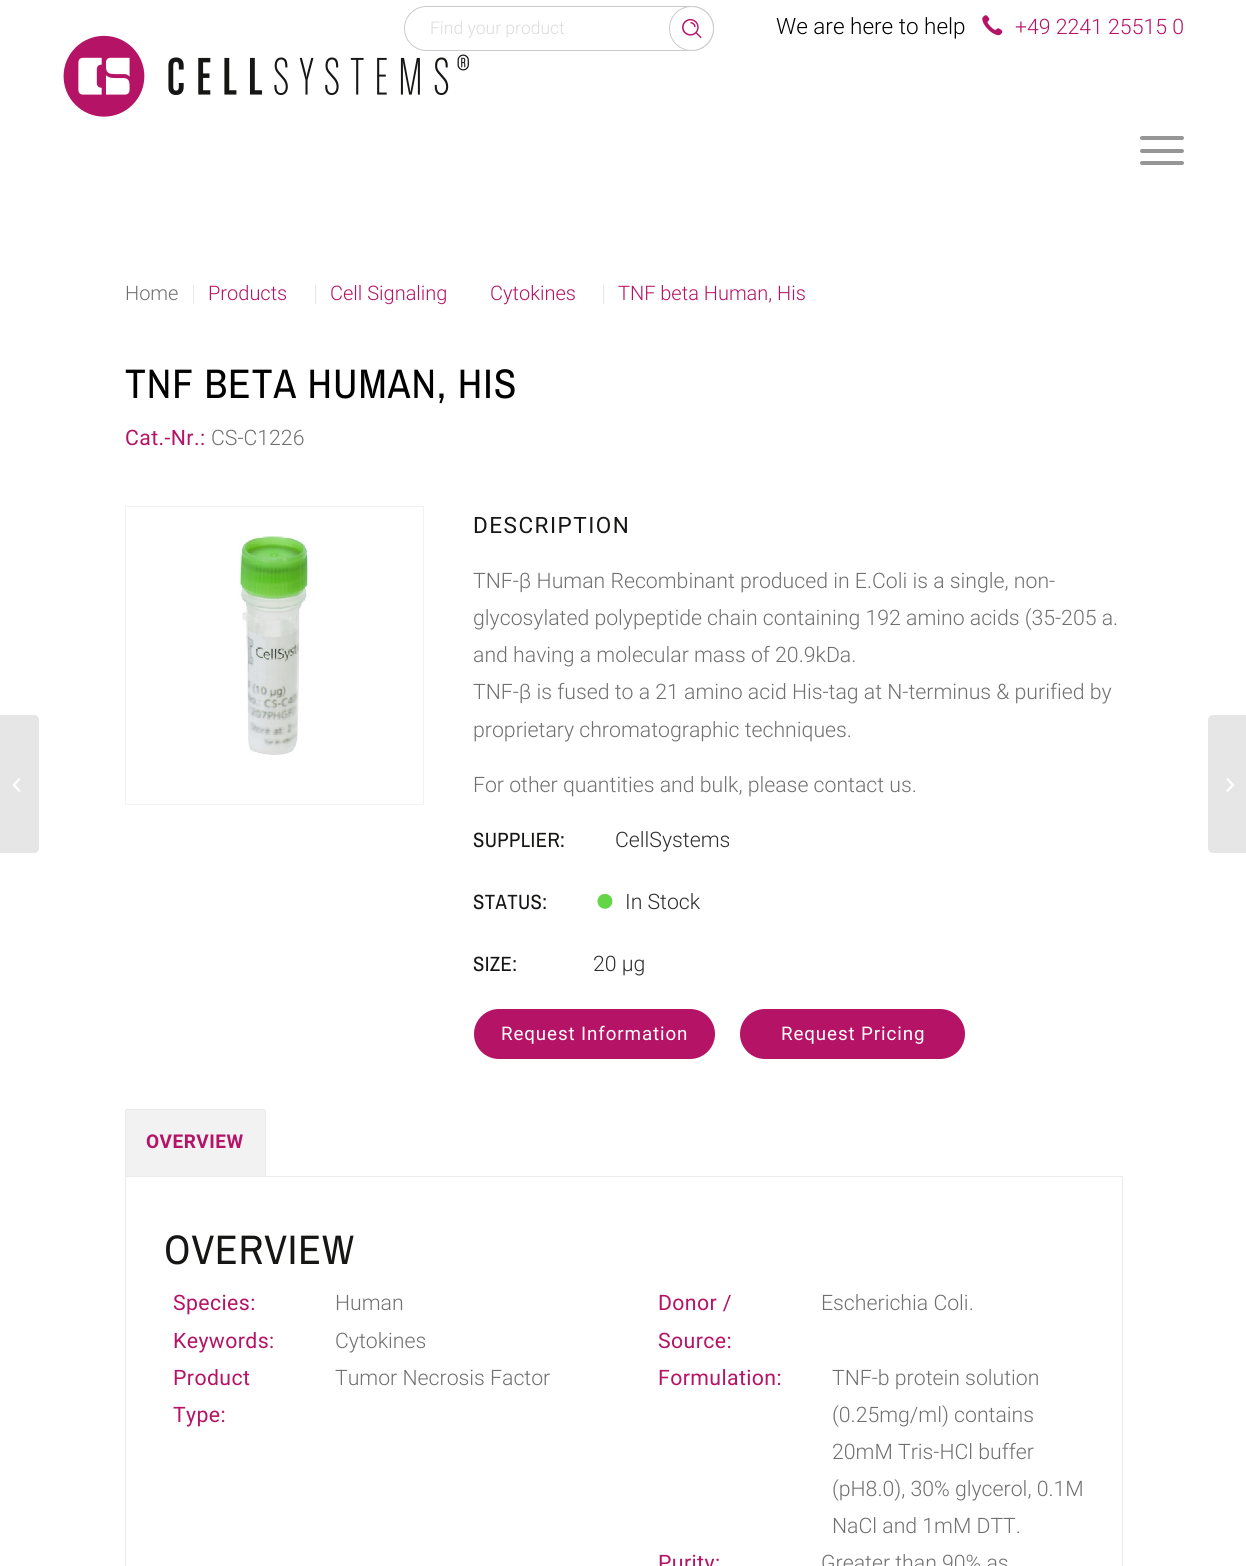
import math
import cairo


def use_color(cr, r, g, b):
  cr.set_source_rgb(r / 255, g / 255, b / 255)

def text(cr, x, y, s, family, size, color, bold=False, italic=False):
  cr.select_font_face(family, cairo.FONT_SLANT_ITALIC if italic else cairo.FONT_SLANT_NORMAL, cairo.FONT_WEIGHT_BOLD if bold else cairo.FONT_WEIGHT_NORMAL)
  cr.set_font_size(size)
  use_color(cr, *color)
  cr.move_to(x, y)
  cr.show_text(s)

def spaced_text(cr, x, y, s, letter, word):
  cr.move_to(x, y)
  for ch in s:
    cr.show_text(ch)
    cr.rel_move_to(letter + word * (ch == ' '), 0)

def box(cr, x, y, w, h, *color):
  use_color(cr, *color)
  cr.rectangle(x, y, w, h)
  cr.fill()

def round_rect(cr, x, y, w, h, r):
  cr.new_sub_path()
  for i, (u, v) in enumerate([(x + w - r, y + h - r), (x + r, y + h - r), (x + r, y + r), (x + w - r, y + r)]):
    cr.arc(u, v, r, i * math.pi / 2, (i + 1) * math.pi / 2)
  cr.close_path()

def picture(cr, path, x, y, w, h):
  cr.save()
  cr.set_source_surface(cairo.ImageSurface.create_from_png(path), x, y)
  cr.rectangle(x, y, w, h)
  cr.fill()
  cr.restore()

def draw(cr):
  use_color(cr, 255, 255, 255)
  cr.paint()
  round_rect(cr, 404.5, 6.5, 309, 44, 22)
  use_color(cr, 202, 202, 202)
  cr.set_line_width(1)
  cr.stroke()
  use_color(cr, 255, 255, 255)
  cr.arc(691.5, 28.5, 22, 0, 2 * math.pi)
  cr.fill_preserve()
  use_color(cr, 202, 202, 202)
  cr.stroke()
  picture(cr, "img_01.png", 682, 19, 20, 20)
  picture(cr, "img_02.png", 982, 15, 21, 21)
  use_color(cr, 150, 150, 150)
  round_rect(cr, 1140, 149, 44, 4, 2)
  cr.fill()
  round_rect(cr, 1140, 136, 44, 4, 2)
  cr.fill()
  round_rect(cr, 1140, 161, 44, 4, 2)
  cr.fill()
  use_color(cr, 230, 230, 230)
  cr.new_path()
  cr.move_to(0, 715)
  cr.line_to(34, 715)
  cr.curve_to(37, 715, 39, 717, 39, 720)
  cr.line_to(39, 848)
  cr.curve_to(39, 851, 37, 853, 34, 853)
  cr.line_to(0, 853)
  cr.close_path()
  cr.fill()
  picture(cr, "img_04.png", 13, 778, 7, 14)
  cr.rectangle(125.5, 506.5, 298, 298)
  use_color(cr, 242, 242, 242)
  cr.stroke()
  picture(cr, "img_05.png", 238, 535, 73, 220)
  picture(cr, "img_06.png", 597, 893, 16, 16)
  use_color(cr, 181, 19, 101)
  round_rect(cr, 474, 1009, 241, 50, 25)
  cr.fill()
  round_rect(cr, 740, 1009, 225, 50, 25)
  cr.fill()
  use_color(cr, 242, 242, 242)
  cr.new_path()
  cr.move_to(127.5, 1109)
  cr.line_to(263.5, 1109)
  cr.curve_to(265, 1109, 266, 1110, 266, 1111.5)
  cr.line_to(266, 1176)
  cr.line_to(125, 1176)
  cr.line_to(125, 1111.5)
  cr.curve_to(125, 1110, 126, 1109, 127.5, 1109)
  cr.close_path()
  cr.fill()
  box(cr, 126, 1109, 139, 1, 235, 235, 235)
  box(cr, 265, 1110, 1, 66, 235, 235, 235)
  box(cr, 125, 1110, 1, 66, 235, 235, 235)
  cr.rectangle(125.5, 1176.5, 997, 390)
  cr.stroke()
  use_color(cr, 230, 230, 230)
  cr.new_path()
  cr.move_to(1213, 715)
  cr.line_to(1246, 715)
  cr.line_to(1246, 853)
  cr.line_to(1213, 853)
  cr.curve_to(1210, 853, 1208, 851, 1208, 848)
  cr.line_to(1208, 720)
  cr.curve_to(1208, 717, 1210, 715, 1213, 715)
  cr.close_path()
  cr.fill()
  picture(cr, "img_07.png", 1226, 778, 8, 14)
  text(cr, 430, 34, "Find your product", "Roboto Light", 17.5, (220, 220, 220))
  text(cr, 776, 34, "We are here to help", "Roboto Light", 22.5, (0, 0, 0))
  text(cr, 1015, 34, "+49 2241 25515 0", "Roboto Light", 21.25, (181, 19, 101))
  picture(cr, "img_03.png", 63, 35, 406, 82)
  text(cr, 125, 300, "Home", "Roboto Light", 20, (112, 112, 112))
  text(cr, 191, 301, "|", "Roboto Light", 22.5, (233, 233, 233))
  text(cr, 208, 300, "Products", "Roboto Light", 20, (181, 19, 101))
  text(cr, 313, 301, "|", "Roboto Light", 22.5, (233, 233, 233))
  text(cr, 330, 300, "Cell Signaling", "Roboto Light", 20, (181, 19, 101))
  text(cr, 490, 300, "Cytokines", "Roboto Light", 20, (181, 19, 101))
  text(cr, 601, 301, "|", "Roboto Light", 22.5, (233, 233, 233))
  text(cr, 618, 300, "TNF beta Human, His", "Roboto Light", 20, (181, 19, 101))
  cr.select_font_face("Pragati Narrow")
  cr.set_font_size(45)
  use_color(cr, 0, 0, 0)
  spaced_text(cr, 125, 398, "TNF BETA HUMAN, HIS", 1, 0)
  cr.select_font_face("Roboto")
  cr.set_font_size(21.25)
  use_color(cr, 181, 19, 101)
  spaced_text(cr, 125, 445, "Cat.-Nr.:", 0.4, 0)
  text(cr, 211, 445, "CS-C1226", "Roboto Light", 21.25, (112, 112, 112))
  cr.select_font_face("Roboto")
  cr.set_font_size(22.5)
  use_color(cr, 22, 22, 21)
  spaced_text(cr, 473, 533, "DESCRIPTION", 1.5, 0)
  text(cr, 473, 588, "TNF-β Human Recombinant produced in E.Coli is a single, non-", "Roboto Light", 21.25, (112, 112, 112))
  text(cr, 473, 625, "glycosylated polypeptide chain containing 192 amino acids (35-205 a.", "Roboto Light", 21.25, (112, 112, 112))
  text(cr, 473, 662, "and having a molecular mass of 20.9kDa.", "Roboto Light", 21.25, (112, 112, 112))
  text(cr, 473, 699, "TNF-β is fused to a 21 amino acid His-tag at N-terminus & purified by", "Roboto Light", 21.25, (112, 112, 112))
  text(cr, 473, 737, "proprietary chromatographic techniques.", "Roboto Light", 21.25, (112, 112, 112))
  text(cr, 473, 792, "For other quantities and bulk, please contact us.", "Roboto Light", 21.25, (112, 112, 112))
  cr.select_font_face("Pragati Narrow")
  cr.set_font_size(22.5)
  use_color(cr, 22, 22, 21)
  spaced_text(cr, 473, 847, "SUPPLIER:", 0.4, 0)
  text(cr, 615, 847, "CellSystems", "Roboto Light", 21.25, (45, 45, 45))
  cr.select_font_face("Pragati Narrow")
  cr.set_font_size(22.5)
  use_color(cr, 22, 22, 21)
  spaced_text(cr, 473, 909, "STATUS:", 0.4, 0)
  text(cr, 625, 909, "In Stock", "Roboto Light", 21.25, (45, 45, 45))
  cr.select_font_face("Pragati Narrow")
  cr.set_font_size(22.5)
  use_color(cr, 22, 22, 21)
  spaced_text(cr, 473, 971, "SIZE:", 0.4, 0)
  text(cr, 593, 971, "20 µg", "Roboto Light", 21.25, (45, 45, 45))
  cr.select_font_face("Roboto")
  cr.set_font_size(18.75)
  use_color(cr, 255, 255, 255)
  spaced_text(cr, 501, 1040, "Request Information", 0.9, 0)
  spaced_text(cr, 781, 1040, "Request Pricing", 0.9, 0)
  cr.select_font_face("Roboto", cairo.FONT_SLANT_NORMAL, cairo.FONT_WEIGHT_BOLD)
  cr.set_font_size(19)
  use_color(cr, 181, 19, 101)
  spaced_text(cr, 146, 1148, "OVERVIEW", 0.5, 0)
  cr.select_font_face("Pragati Narrow")
  cr.set_font_size(45)
  use_color(cr, 22, 22, 21)
  spaced_text(cr, 164, 1264, "OVERVIEW", 1, 0)
  cr.select_font_face("Roboto")
  cr.set_font_size(21.25)
  use_color(cr, 181, 19, 101)
  spaced_text(cr, 173, 1310, "Species:", 0.4, 0)
  text(cr, 335, 1310, "Human", "Roboto Light", 21.25, (112, 112, 112))
  cr.select_font_face("Roboto")
  use_color(cr, 181, 19, 101)
  spaced_text(cr, 173, 1348, "Keywords:", 0.4, 0)
  text(cr, 335, 1348, "Cytokines", "Roboto Light", 21.25, (112, 112, 112))
  cr.select_font_face("Roboto")
  use_color(cr, 181, 19, 101)
  spaced_text(cr, 173, 1385, "Product", 0.4, 0)
  spaced_text(cr, 173, 1422, "Type:", 0.4, 0)
  text(cr, 335, 1385, "Tumor Necrosis Factor", "Roboto Light", 21.25, (112, 112, 112))
  cr.select_font_face("Roboto")
  use_color(cr, 181, 19, 101)
  spaced_text(cr, 658, 1310, "Donor /", 0.4, 0)
  spaced_text(cr, 658, 1348, "Source:", 0.4, 0)
  text(cr, 821, 1310, "Escherichia Coli.", "Roboto Light", 21.25, (112, 112, 112))
  cr.select_font_face("Roboto")
  use_color(cr, 181, 19, 101)
  spaced_text(cr, 658, 1385, "Formulation:", 0.4, 0)
  text(cr, 832, 1385, "TNF-b protein solution", "Roboto Light", 21.25, (112, 112, 112))
  text(cr, 832, 1422, "(0.25mg/ml) contains", "Roboto Light", 21.25, (112, 112, 112))
  text(cr, 832, 1459, "20mM Tris-HCl buffer", "Roboto Light", 21.25, (112, 112, 112))
  text(cr, 832, 1496, "(pH8.0), 30% glycerol, 0.1M", "Roboto Light", 21.25, (112, 112, 112))
  text(cr, 832, 1533, "NaCl and 1mM DTT.", "Roboto Light", 21.25, (112, 112, 112))
  cr.select_font_face("Roboto")
  use_color(cr, 181, 19, 101)
  spaced_text(cr, 658, 1570, "Purity:", 0.4, 0)
  text(cr, 821, 1570, "Greater than 90% as", "Roboto Light", 21.25, (112, 112, 112))


surface = cairo.ImageSurface(cairo.FORMAT_RGB24, 1246, 1566)
cr = cairo.Context(surface)
options = cairo.FontOptions()
options.set_hint_metrics(cairo.HINT_METRICS_OFF)
options.set_hint_style(cairo.HINT_STYLE_NONE)
cr.set_font_options(options)
cr.set_miter_limit(4)
draw(cr)
surface.write_to_png("out.png")
